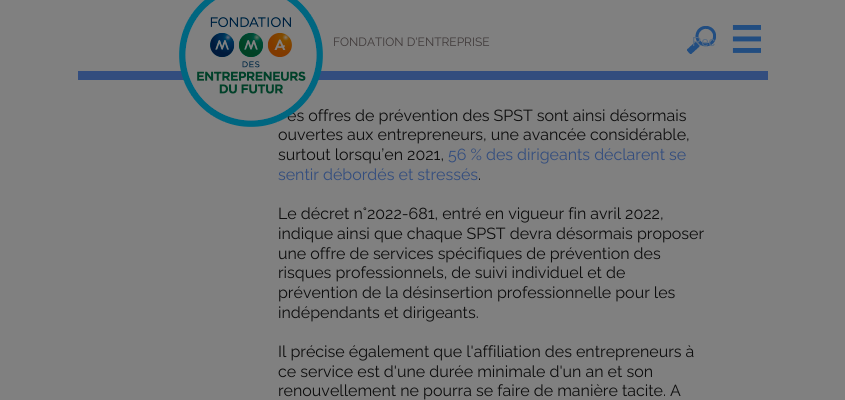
import math
import cairo


def use_color(cr, r, g, b):
  cr.set_source_rgb(r / 255, g / 255, b / 255)

def text(cr, x, y, s, family, size, color, bold=False, italic=False):
  cr.select_font_face(family, cairo.FONT_SLANT_ITALIC if italic else cairo.FONT_SLANT_NORMAL, cairo.FONT_WEIGHT_BOLD if bold else cairo.FONT_WEIGHT_NORMAL)
  cr.set_font_size(size)
  use_color(cr, *color)
  cr.move_to(x, y)
  cr.show_text(s)

def box(cr, x, y, w, h, *color):
  use_color(cr, *color)
  cr.rectangle(x, y, w, h)
  cr.fill()

def picture(cr, path, x, y, w, h):
  cr.save()
  cr.set_source_surface(cairo.ImageSurface.create_from_png(path), x, y)
  cr.rectangle(x, y, w, h)
  cr.fill()
  cr.restore()

def draw(cr):
  use_color(cr, 128, 128, 128)
  cr.paint()
  box(cr, 78, 71, 690, 9, 51, 77, 126)
  picture(cr, "img_02.png", 687, 26, 29, 28)
  picture(cr, "img_03.png", 732, 25, 29, 28)
  text(cr, 333, 46, "FONDATION D'ENTREPRISE", "Raleway", 12, (64, 58, 58))
  text(cr, 692, 46, "Rec", "Liberation Sans", 13, (87, 106, 128))
  text(cr, 287, 121, "es offres de prévention des SPST sont ainsi désormais", "Raleway", 16, (13, 13, 13))
  picture(cr, "img_01.png", 179, 0, 144, 127)
  text(cr, 278, 140, "ouvertes aux entrepreneurs, une avancée considérable,", "Raleway", 16, (13, 13, 13))
  text(cr, 278, 160, "surtout lorsqu’en 2021,", "Raleway", 16, (13, 13, 13))
  text(cr, 448, 160, "56 % des dirigeants déclarent se", "Raleway", 16, (51, 77, 126))
  text(cr, 278, 180, "sentir débordés et stressés", "Raleway", 16, (51, 77, 126))
  text(cr, 478, 180, ".", "Raleway", 16, (13, 13, 13))
  text(cr, 278, 219, "Le décret n°2022-681, entré en vigueur fin avril 2022,", "Raleway", 16, (13, 13, 13))
  text(cr, 278, 239, "indique ainsi que chaque SPST devra désormais proposer", "Raleway", 16, (13, 13, 13))
  text(cr, 278, 259, "une offre de services spécifiques de prévention des", "Raleway", 16, (13, 13, 13))
  text(cr, 278, 278, "risques professionnels, de suivi individuel et de", "Raleway", 16, (13, 13, 13))
  text(cr, 278, 298, "prévention de la désinsertion professionnelle pour les", "Raleway", 16, (13, 13, 13))
  text(cr, 278, 318, "indépendants et dirigeants.", "Raleway", 16, (13, 13, 13))
  text(cr, 278, 357, "Il précise également que l'affiliation des entrepreneurs à", "Raleway", 16, (13, 13, 13))
  text(cr, 278, 377, "ce service est d'une durée minimale d'un an et son", "Raleway", 16, (13, 13, 13))
  text(cr, 278, 396, "renouvellement ne pourra se faire de manière tacite. A", "Raleway", 16, (13, 13, 13))


surface = cairo.ImageSurface(cairo.FORMAT_RGB24, 845, 400)
cr = cairo.Context(surface)
options = cairo.FontOptions()
options.set_hint_metrics(cairo.HINT_METRICS_OFF)
options.set_hint_style(cairo.HINT_STYLE_NONE)
cr.set_font_options(options)
cr.set_miter_limit(4)
draw(cr)
surface.write_to_png("out.png")
